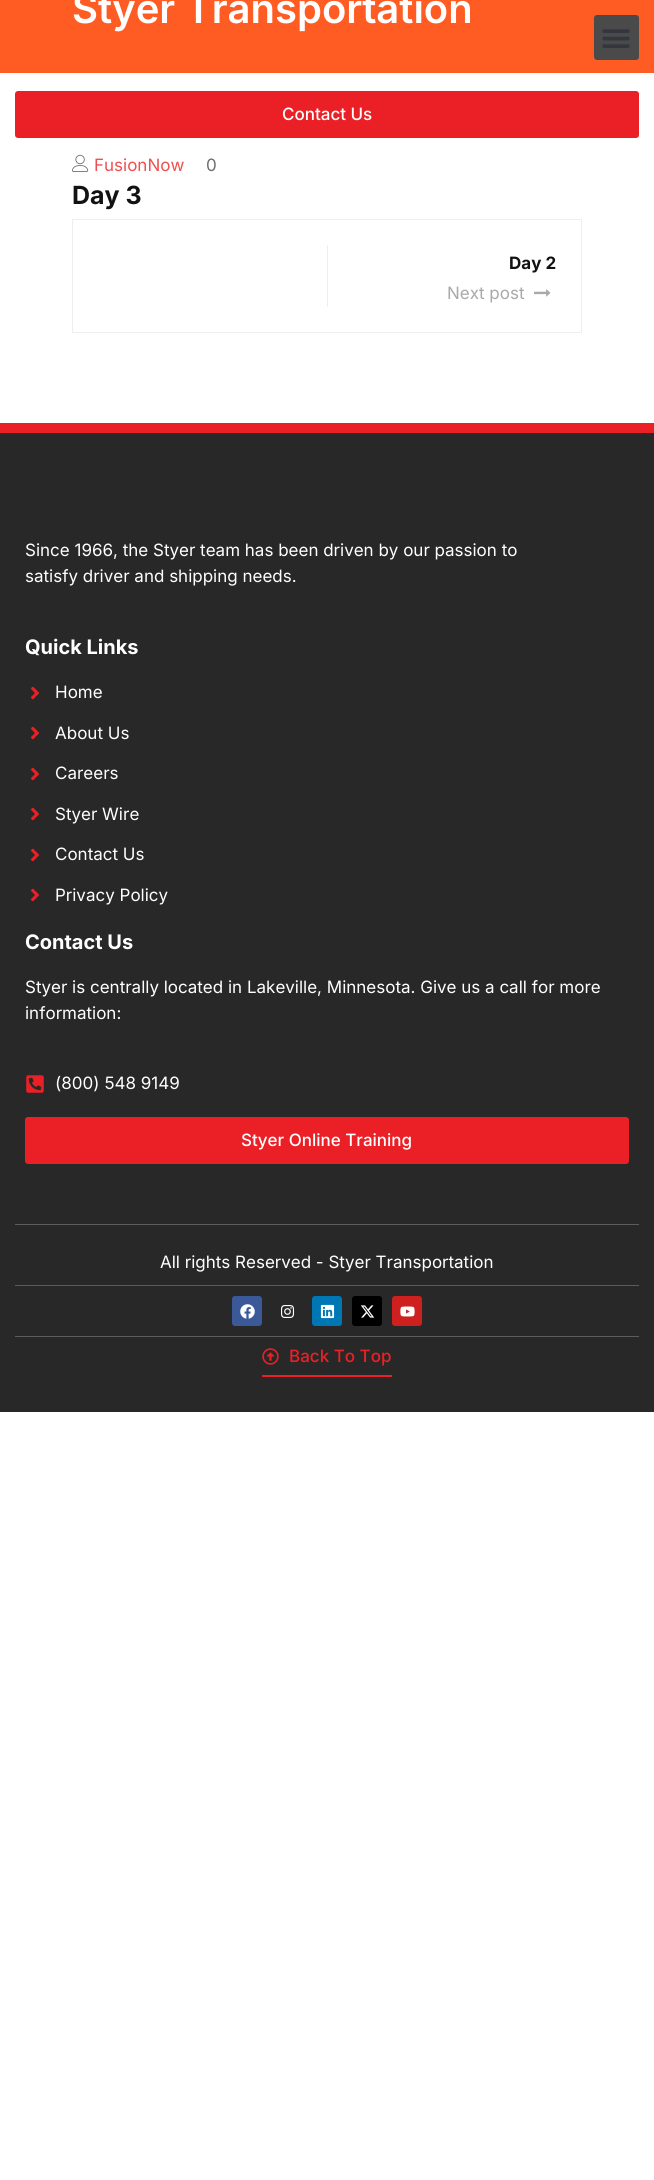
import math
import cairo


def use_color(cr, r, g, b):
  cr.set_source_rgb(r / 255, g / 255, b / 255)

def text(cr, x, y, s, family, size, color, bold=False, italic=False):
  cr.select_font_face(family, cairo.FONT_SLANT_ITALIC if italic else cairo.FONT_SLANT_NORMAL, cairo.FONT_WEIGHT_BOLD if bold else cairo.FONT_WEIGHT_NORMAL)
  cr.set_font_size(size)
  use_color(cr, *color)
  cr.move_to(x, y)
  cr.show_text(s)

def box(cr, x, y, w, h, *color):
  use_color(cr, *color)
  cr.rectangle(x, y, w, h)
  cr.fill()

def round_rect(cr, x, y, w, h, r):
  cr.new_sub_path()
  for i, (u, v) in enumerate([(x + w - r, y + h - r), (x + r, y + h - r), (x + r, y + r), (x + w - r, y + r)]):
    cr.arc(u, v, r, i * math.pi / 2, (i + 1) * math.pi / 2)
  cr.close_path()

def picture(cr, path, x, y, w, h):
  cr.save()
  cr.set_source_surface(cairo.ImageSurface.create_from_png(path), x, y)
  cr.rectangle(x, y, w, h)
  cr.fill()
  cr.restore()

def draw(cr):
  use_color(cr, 255, 255, 255)
  cr.paint()
  box(cr, 0, 0, 654, 73, 255, 92, 35)
  use_color(cr, 74, 74, 74)
  round_rect(cr, 594, 15, 45, 45, 3)
  cr.fill()
  picture(cr, "img_01.png", 602, 29, 28, 19)
  use_color(cr, 235, 32, 38)
  round_rect(cr, 15, 91, 624, 47, 3)
  cr.fill()
  picture(cr, "img_02.png", 72, 154, 17, 18)
  cr.rectangle(72.5, 219.5, 509, 113)
  use_color(cr, 238, 238, 238)
  cr.set_line_width(1)
  cr.stroke()
  box(cr, 327, 245, 1, 62, 238, 238, 238)
  picture(cr, "img_03.png", 534, 289, 17, 8)
  box(cr, 0, 433, 654, 979, 40, 40, 40)
  box(cr, 0, 423, 654, 10, 235, 32, 38)
  picture(cr, "img_04.png", 31, 686, 8, 14)
  picture(cr, "img_04.png", 31, 726, 8, 14)
  picture(cr, "img_04.png", 31, 767, 8, 14)
  picture(cr, "img_04.png", 31, 807, 8, 14)
  picture(cr, "img_04.png", 31, 848, 8, 14)
  picture(cr, "img_04.png", 31, 888, 8, 14)
  picture(cr, "img_05.png", 26, 1075, 18, 18)
  round_rect(cr, 25, 1117, 604, 47, 3)
  cr.fill()
  box(cr, 15, 1224, 624, 1, 92, 92, 92)
  box(cr, 15, 1285, 624, 1, 92, 92, 92)
  box(cr, 15, 1336, 624, 1, 92, 92, 92)
  use_color(cr, 59, 89, 152)
  round_rect(cr, 232, 1296, 30, 30, 3)
  cr.fill()
  picture(cr, "img_06.png", 240, 1304, 15, 15)
  picture(cr, "img_07.png", 281, 1305, 14, 13)
  use_color(cr, 0, 119, 181)
  round_rect(cr, 312, 1296, 30, 30, 3)
  cr.fill()
  picture(cr, "img_08.png", 320, 1304, 15, 15)
  use_color(cr, 0, 0, 0)
  round_rect(cr, 352, 1296, 30, 30, 3)
  cr.fill()
  picture(cr, "img_09.png", 360, 1305, 15, 13)
  use_color(cr, 205, 32, 31)
  round_rect(cr, 392, 1296, 30, 30, 3)
  cr.fill()
  picture(cr, "img_10.png", 400, 1306, 15, 11)
  box(cr, 262, 1375, 130, 2, 235, 32, 38)
  picture(cr, "img_11.png", 262, 1348, 17, 17)
  text(cr, 72, 23, "Styer Transportation", "Inter SemiBold", 40, (255, 255, 255))
  text(cr, 282, 120, "Contact Us", "Inter Medium", 17, (255, 255, 255))
  text(cr, 94, 171, "FusionNow", "Inter", 17, (239, 79, 79))
  text(cr, 206, 171, "0", "Inter", 17, (110, 110, 110))
  text(cr, 72, 204, "Day 3", "Inter", 25, (18, 18, 18), bold=True)
  text(cr, 509, 269, "Day 2", "Inter", 17, (18, 18, 18), bold=True)
  text(cr, 447, 299, "Next post", "Inter", 17, (169, 169, 169))
  text(cr, 25, 556, "Since 1966, the Styer team has been driven by our passion to", "Inter", 17, (255, 255, 255))
  text(cr, 25, 582, "satisfy driver and shipping needs.", "Inter", 17, (255, 255, 255))
  text(cr, 25, 654, "Quick Links", "Inter", 20, (255, 255, 255), bold=True)
  text(cr, 55, 698, "Home", "Inter", 17, (255, 255, 255))
  text(cr, 55, 739, "About Us", "Inter", 17, (255, 255, 255))
  text(cr, 55, 779, "Careers", "Inter", 17, (255, 255, 255))
  text(cr, 55, 820, "Styer Wire", "Inter", 17, (255, 255, 255))
  text(cr, 55, 860, "Contact Us", "Inter", 17, (255, 255, 255))
  text(cr, 55, 901, "Privacy Policy", "Inter", 17, (255, 255, 255))
  text(cr, 25, 949, "Contact Us", "Inter", 20, (255, 255, 255), bold=True)
  text(cr, 25, 993, "Styer is centrally located in Lakeville, Minnesota. Give us a call for more", "Inter", 17, (255, 255, 255))
  text(cr, 25, 1019, "information:", "Inter", 17, (255, 255, 255))
  text(cr, 55, 1089, "(800) 548 9149", "Inter", 17, (255, 255, 255))
  text(cr, 241, 1146, "Styer Online Training", "Inter Medium", 17, (255, 255, 255))
  text(cr, 160, 1268, "All rights Reserved - Styer Transportation", "Inter", 17, (255, 255, 255))
  text(cr, 289, 1362, "Back To Top", "Inter Medium", 17, (235, 32, 38))


surface = cairo.ImageSurface(cairo.FORMAT_RGB24, 654, 2180)
cr = cairo.Context(surface)
options = cairo.FontOptions()
options.set_hint_metrics(cairo.HINT_METRICS_OFF)
options.set_hint_style(cairo.HINT_STYLE_NONE)
cr.set_font_options(options)
cr.set_miter_limit(4)
draw(cr)
surface.write_to_png("out.png")
